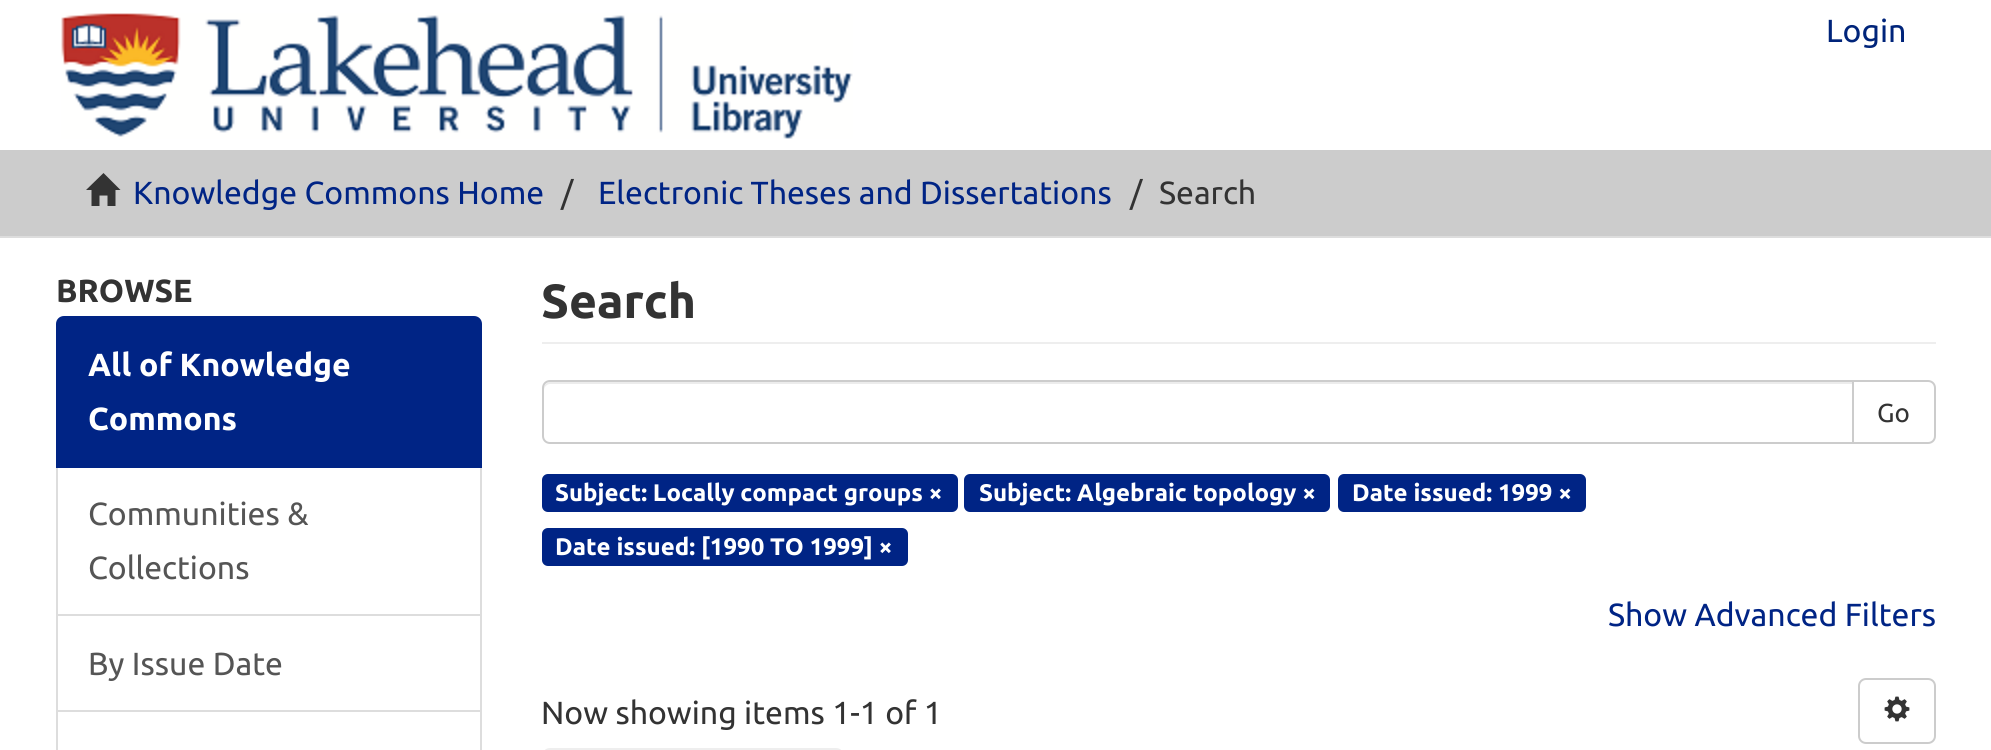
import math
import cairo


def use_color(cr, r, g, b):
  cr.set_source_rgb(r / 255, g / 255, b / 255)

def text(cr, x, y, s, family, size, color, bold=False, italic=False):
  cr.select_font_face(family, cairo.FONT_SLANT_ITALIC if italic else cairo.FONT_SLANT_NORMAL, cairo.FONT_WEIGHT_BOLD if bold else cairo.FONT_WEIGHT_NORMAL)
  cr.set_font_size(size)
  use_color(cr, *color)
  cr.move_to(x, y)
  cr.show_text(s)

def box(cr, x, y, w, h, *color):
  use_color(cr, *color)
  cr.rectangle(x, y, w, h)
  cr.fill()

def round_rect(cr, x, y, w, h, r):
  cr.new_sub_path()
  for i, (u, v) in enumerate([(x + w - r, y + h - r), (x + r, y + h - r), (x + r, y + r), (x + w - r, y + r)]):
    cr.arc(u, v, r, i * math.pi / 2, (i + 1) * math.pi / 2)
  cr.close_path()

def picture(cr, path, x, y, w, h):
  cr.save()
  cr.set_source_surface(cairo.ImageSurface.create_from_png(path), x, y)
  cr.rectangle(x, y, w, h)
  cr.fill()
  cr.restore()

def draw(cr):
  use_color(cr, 255, 255, 255)
  cr.paint()
  picture(cr, "img_01.png", 61, 13, 792, 126)
  box(cr, 0, 150, 1991, 86, 204, 204, 204)
  box(cr, 0, 236, 1991, 2, 221, 221, 221)
  use_color(cr, 51, 51, 51)
  cr.new_path()
  cr.move_to(86, 190)
  cr.line_to(103.5, 173)
  cr.line_to(120.5, 190)
  cr.line_to(115.5, 190)
  cr.line_to(115.5, 206)
  cr.line_to(107.5, 206)
  cr.line_to(107.5, 195.5)
  cr.line_to(99.5, 195.5)
  cr.line_to(99.5, 206)
  cr.line_to(91.5, 206)
  cr.line_to(91.5, 190)
  cr.close_path()
  cr.fill()
  cr.rectangle(57, 467, 424, 148)
  use_color(cr, 221, 221, 221)
  cr.stroke()
  use_color(cr, 0, 36, 133)
  cr.new_path()
  cr.move_to(64, 317)
  cr.line_to(474, 317)
  cr.curve_to(478, 317, 481, 320, 481, 324)
  cr.line_to(481, 467)
  cr.line_to(57, 467)
  cr.line_to(57, 324)
  cr.curve_to(57, 320, 60, 317, 64, 317)
  cr.close_path()
  cr.fill_preserve()
  cr.stroke()
  cr.rectangle(57, 615, 424, 96)
  use_color(cr, 221, 221, 221)
  cr.stroke()
  cr.rectangle(57, 711, 424, 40)
  cr.stroke()
  box(cr, 542, 342, 1394, 2, 238, 238, 238)
  cr.new_path()
  cr.move_to(1853, 381)
  cr.line_to(1928, 381)
  cr.curve_to(1932, 381, 1935, 384, 1935, 388)
  cr.line_to(1935, 436)
  cr.curve_to(1935, 440, 1932, 443, 1928, 443)
  cr.line_to(1853, 443)
  cr.close_path()
  use_color(cr, 204, 204, 204)
  cr.stroke()
  use_color(cr, 255, 255, 255)
  cr.new_path()
  cr.move_to(550, 380)
  cr.line_to(1854, 380)
  cr.line_to(1854, 444)
  cr.line_to(550, 444)
  cr.curve_to(545.5, 444, 542, 440.5, 542, 436)
  cr.line_to(542, 388)
  cr.curve_to(542, 383.5, 545.5, 380, 550, 380)
  cr.close_path()
  cr.fill()
  use_color(cr, 236, 236, 236)
  cr.new_path()
  cr.move_to(550, 384)
  cr.line_to(1852, 384)
  cr.line_to(1852, 382)
  cr.line_to(550, 382)
  cr.curve_to(547, 382, 544, 385, 544, 388)
  cr.line_to(544, 390)
  cr.curve_to(544, 387, 547, 384, 550, 384)
  cr.close_path()
  cr.fill()
  cr.new_path()
  cr.move_to(550, 381)
  cr.line_to(1853, 381)
  cr.line_to(1853, 443)
  cr.line_to(550, 443)
  cr.curve_to(546, 443, 543, 440, 543, 436)
  cr.line_to(543, 388)
  cr.curve_to(543, 384, 546, 381, 550, 381)
  cr.close_path()
  use_color(cr, 204, 204, 204)
  cr.stroke()
  use_color(cr, 0, 36, 133)
  round_rect(cr, 542, 474, 416, 38, 6)
  cr.fill()
  round_rect(cr, 964, 474, 366, 38, 6)
  cr.fill()
  round_rect(cr, 1338, 474, 248, 38, 6)
  cr.fill()
  round_rect(cr, 542, 528, 366, 38, 6)
  cr.fill()
  round_rect(cr, 1859, 679, 76, 64, 7)
  use_color(cr, 204, 204, 204)
  cr.stroke()
  picture(cr, "img_02.png", 1884, 696, 26, 26)
  use_color(cr, 238, 238, 238)
  round_rect(cr, 542, 748, 302, 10, 8)
  cr.fill()
  text(cr, 1826, 42, "Login", "Ubuntu", 32, (0, 36, 122))
  text(cr, 133, 204, "Knowledge Commons Home", "Ubuntu", 32, (0, 36, 133))
  text(cr, 561, 204, "/", "Ubuntu", 32, (51, 51, 51))
  text(cr, 598, 204, "Electronic Theses and Dissertations", "Ubuntu", 32, (0, 36, 133))
  text(cr, 1130, 204, "/", "Ubuntu", 32, (51, 51, 51))
  text(cr, 1159, 204, "Search", "Ubuntu", 32, (51, 51, 51))
  text(cr, 56, 302, "BROWSE", "Ubuntu", 32, (51, 51, 51), bold=True)
  text(cr, 88, 376, "All of Knowledge", "Ubuntu", 32, (255, 255, 255), bold=True)
  text(cr, 88, 430, "Commons", "Ubuntu", 32, (255, 255, 255), bold=True)
  text(cr, 88, 525, "Communities &", "Ubuntu", 32, (85, 85, 85))
  text(cr, 88, 579, "Collections", "Ubuntu", 32, (85, 85, 85))
  text(cr, 88, 675, "By Issue Date", "Ubuntu", 32, (85, 85, 85))
  text(cr, 541, 318, "Search", "Ubuntu", 48, (51, 51, 51), bold=True)
  text(cr, 1877, 422, "Go", "Ubuntu", 26, (51, 51, 51))
  text(cr, 555, 501, "Subject: Locally compact groups ×", "Ubuntu", 24, (255, 255, 255), bold=True)
  text(cr, 979, 501, "Subject: Algebraic topology ×", "Ubuntu", 24, (255, 255, 255), bold=True)
  text(cr, 1352, 501, "Date issued: 1999 ×", "Ubuntu", 24, (255, 255, 255), bold=True)
  text(cr, 555, 555, "Date issued: [1990 TO 1999] ×", "Ubuntu", 24, (255, 255, 255), bold=True)
  text(cr, 1608, 626, "Show Advanced Filters", "Ubuntu", 32, (0, 36, 133))
  text(cr, 541, 724, "Now showing items 1-1 of 1", "Ubuntu", 32, (51, 51, 51))


surface = cairo.ImageSurface(cairo.FORMAT_RGB24, 1991, 750)
cr = cairo.Context(surface)
options = cairo.FontOptions()
options.set_hint_metrics(cairo.HINT_METRICS_OFF)
options.set_hint_style(cairo.HINT_STYLE_NONE)
cr.set_font_options(options)
cr.set_miter_limit(4)
draw(cr)
surface.write_to_png("out.png")
